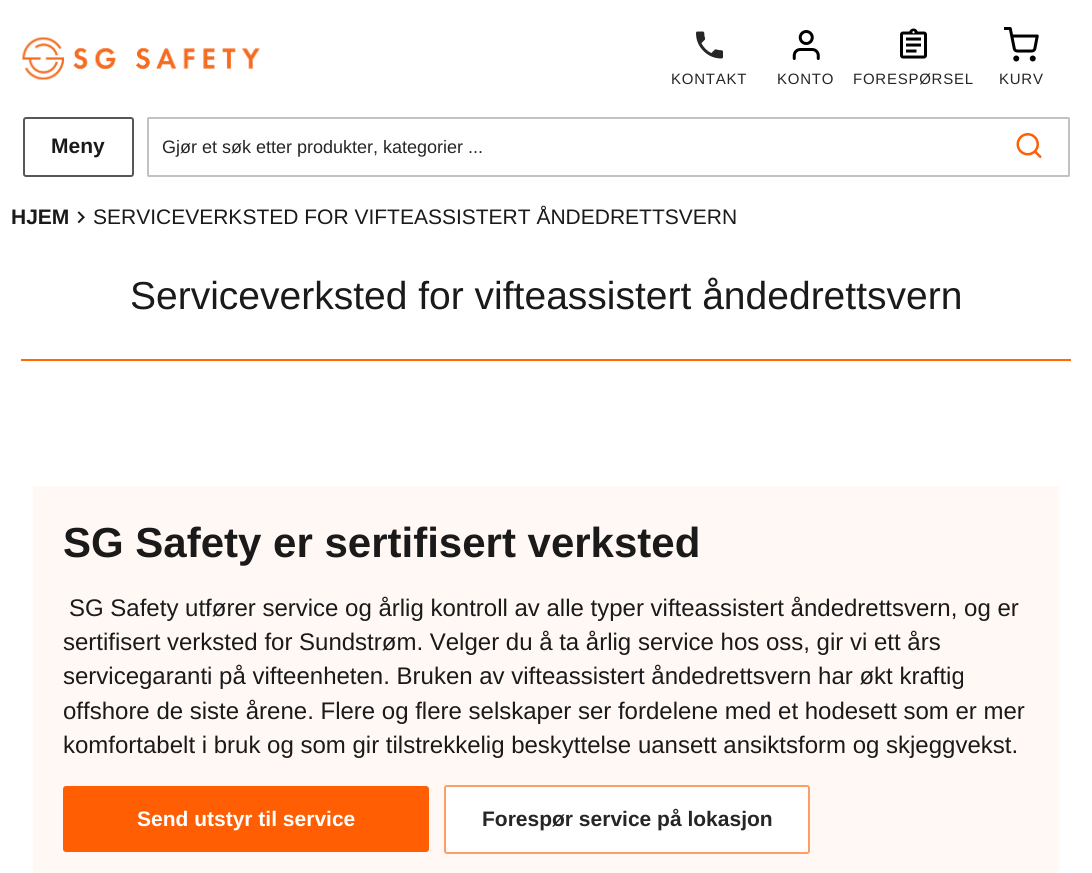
import math
import cairo


def use_color(cr, r, g, b):
  cr.set_source_rgb(r / 255, g / 255, b / 255)

def text(cr, x, y, s, family, size, color, bold=False, italic=False):
  cr.select_font_face(family, cairo.FONT_SLANT_ITALIC if italic else cairo.FONT_SLANT_NORMAL, cairo.FONT_WEIGHT_BOLD if bold else cairo.FONT_WEIGHT_NORMAL)
  cr.set_font_size(size)
  use_color(cr, *color)
  cr.move_to(x, y)
  cr.show_text(s)

def spaced_text(cr, x, y, s, letter, word):
  cr.move_to(x, y)
  for ch in s:
    cr.show_text(ch)
    cr.rel_move_to(letter + word * (ch == ' '), 0)

def box(cr, x, y, w, h, *color):
  use_color(cr, *color)
  cr.rectangle(x, y, w, h)
  cr.fill()

def round_rect(cr, x, y, w, h, r):
  cr.new_sub_path()
  for i, (u, v) in enumerate([(x + w - r, y + h - r), (x + r, y + h - r), (x + r, y + r), (x + w - r, y + r)]):
    cr.arc(u, v, r, i * math.pi / 2, (i + 1) * math.pi / 2)
  cr.close_path()

def picture(cr, path, x, y, w, h):
  cr.save()
  cr.set_source_surface(cairo.ImageSurface.create_from_png(path), x, y)
  cr.rectangle(x, y, w, h)
  cr.fill()
  cr.restore()

def draw(cr):
  use_color(cr, 255, 255, 255)
  cr.paint()
  picture(cr, "img_01.png", 22, 37, 238, 43)
  picture(cr, "img_02.png", 696, 31, 27, 28)
  picture(cr, "img_03.png", 792, 30, 28, 30)
  picture(cr, "img_04.png", 900, 28, 27, 31)
  picture(cr, "img_05.png", 1004, 27, 35, 35)
  round_rect(cr, 24, 118, 109, 58, 2)
  use_color(cr, 87, 87, 87)
  cr.stroke()
  round_rect(cr, 148, 118, 921, 58, 0.5)
  use_color(cr, 194, 194, 194)
  cr.stroke()
  picture(cr, "img_06.png", 1016, 133, 26, 25)
  picture(cr, "img_07.png", 77, 211, 8, 13)
  box(cr, 21, 359, 1050, 2, 255, 105, 0)
  box(cr, 33, 486, 1026, 387, 255, 248, 245)
  use_color(cr, 255, 94, 3)
  round_rect(cr, 63, 786, 366, 66, 3)
  cr.fill()
  use_color(cr, 255, 255, 255)
  round_rect(cr, 445, 786, 364, 67, 2)
  cr.fill_preserve()
  use_color(cr, 255, 157, 102)
  cr.stroke()
  cr.select_font_face("Liberation Sans")
  cr.set_font_size(15)
  use_color(cr, 38, 38, 38)
  spaced_text(cr, 671, 84, "KONTAKT", 0.75, 0)
  spaced_text(cr, 777, 84, "KONTO", 0.75, 0)
  spaced_text(cr, 853, 84, "FORESPØRSEL", 0.75, 0)
  spaced_text(cr, 999, 84, "KURV", 0.75, 0)
  text(cr, 51, 153, "Meny", "Liberation Sans", 21, (26, 26, 26), bold=True)
  text(cr, 162, 153, "Gjør et søk etter produkter, kategorier ...", "Liberation Sans", 18, (38, 38, 38))
  text(cr, 11, 224, "HJEM", "Liberation Sans", 21, (26, 26, 26), bold=True)
  text(cr, 93, 224, "SERVICEVERKSTED FOR VIFTEASSISTERT ÅNDEDRETTSVERN", "Liberation Sans", 21, (26, 26, 26))
  text(cr, 130, 309, "Serviceverksted for vifteassistert åndedrettsvern", "Liberation Sans", 39, (26, 26, 26))
  text(cr, 63, 557, "SG Safety er sertifisert verksted", "Liberation Sans", 42, (26, 26, 26), bold=True)
  text(cr, 69, 616, "SG Safety utfører service og årlig kontroll av alle typer vifteassistert åndedrettsvern, og er", "Liberation Sans", 24, (26, 26, 26))
  text(cr, 63, 650, "sertifisert verksted for Sundstrøm. Velger du å ta årlig service hos oss, gir vi ett års", "Liberation Sans", 24, (26, 26, 26))
  text(cr, 63, 684, "servicegaranti på vifteenheten. Bruken av vifteassistert åndedrettsvern har økt kraftig", "Liberation Sans", 24, (26, 26, 26))
  text(cr, 63, 719, "offshore de siste årene. Flere og flere selskaper ser fordelene med et hodesett som er mer", "Liberation Sans", 24, (26, 26, 26))
  text(cr, 63, 753, "komfortabelt i bruk og som gir tilstrekkelig beskyttelse uansett ansiktsform og skjeggvekst.", "Liberation Sans", 24, (26, 26, 26))
  text(cr, 137, 826, "Send utstyr til service", "Liberation Sans", 21, (255, 255, 255), bold=True)
  text(cr, 482, 826, "Forespør service på lokasjon", "Liberation Sans", 21, (38, 38, 38), bold=True)


surface = cairo.ImageSurface(cairo.FORMAT_RGB24, 1092, 873)
cr = cairo.Context(surface)
options = cairo.FontOptions()
options.set_hint_metrics(cairo.HINT_METRICS_OFF)
options.set_hint_style(cairo.HINT_STYLE_NONE)
cr.set_font_options(options)
cr.set_miter_limit(4)
draw(cr)
surface.write_to_png("out.png")
